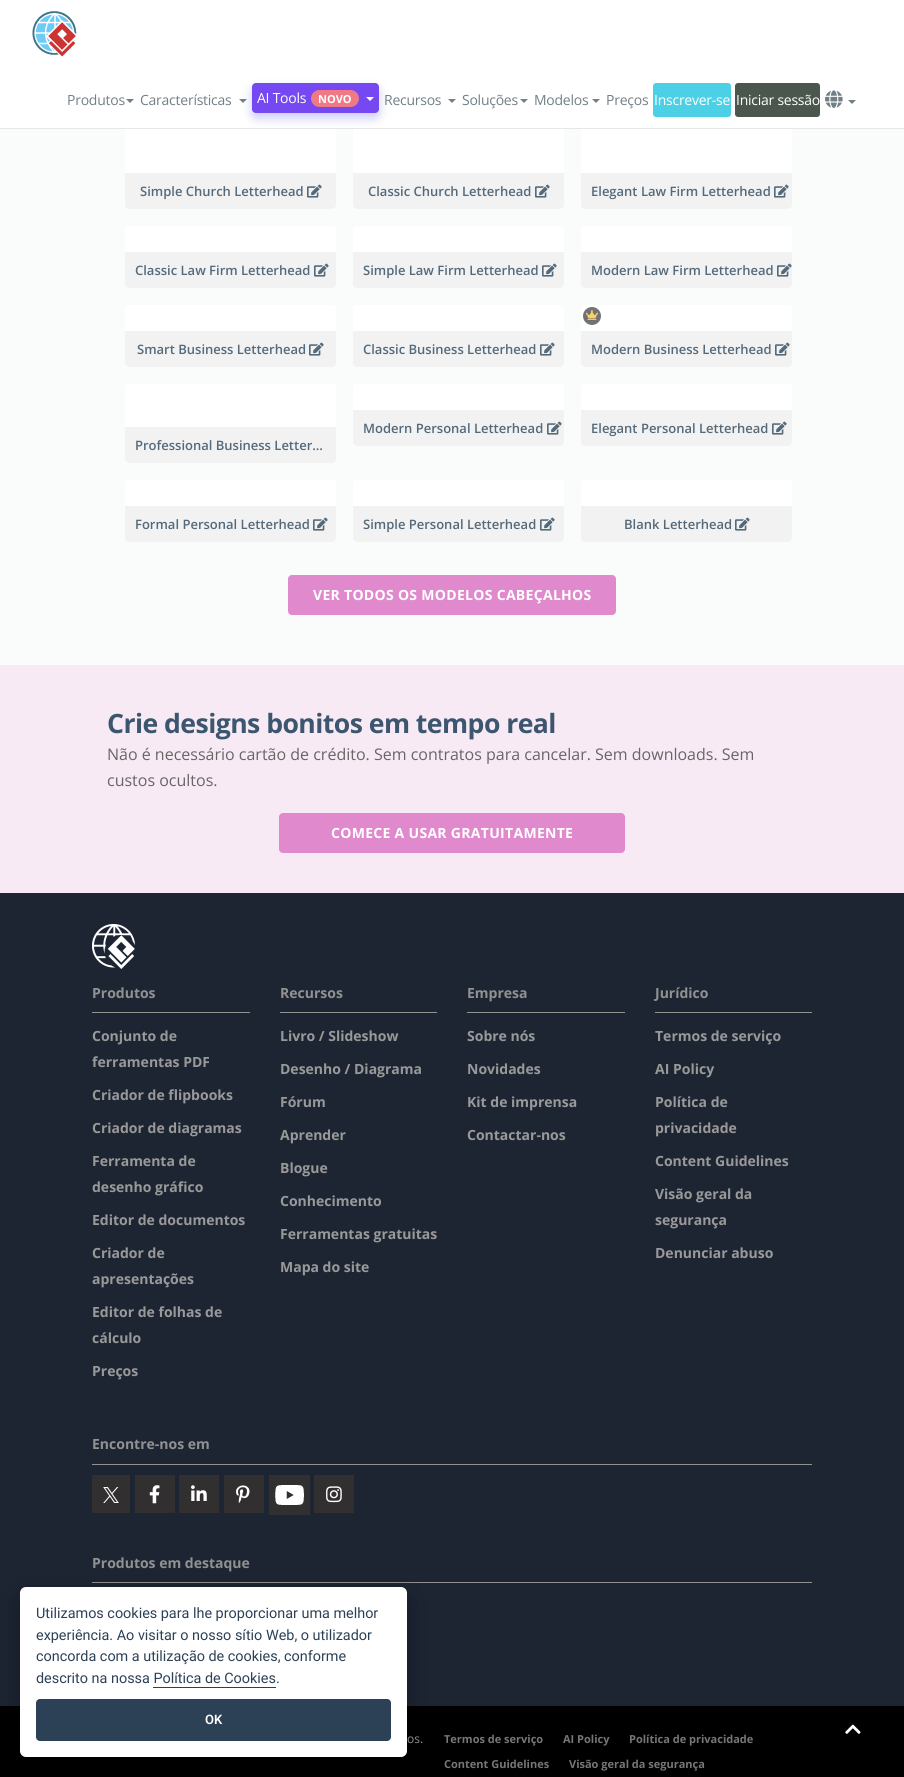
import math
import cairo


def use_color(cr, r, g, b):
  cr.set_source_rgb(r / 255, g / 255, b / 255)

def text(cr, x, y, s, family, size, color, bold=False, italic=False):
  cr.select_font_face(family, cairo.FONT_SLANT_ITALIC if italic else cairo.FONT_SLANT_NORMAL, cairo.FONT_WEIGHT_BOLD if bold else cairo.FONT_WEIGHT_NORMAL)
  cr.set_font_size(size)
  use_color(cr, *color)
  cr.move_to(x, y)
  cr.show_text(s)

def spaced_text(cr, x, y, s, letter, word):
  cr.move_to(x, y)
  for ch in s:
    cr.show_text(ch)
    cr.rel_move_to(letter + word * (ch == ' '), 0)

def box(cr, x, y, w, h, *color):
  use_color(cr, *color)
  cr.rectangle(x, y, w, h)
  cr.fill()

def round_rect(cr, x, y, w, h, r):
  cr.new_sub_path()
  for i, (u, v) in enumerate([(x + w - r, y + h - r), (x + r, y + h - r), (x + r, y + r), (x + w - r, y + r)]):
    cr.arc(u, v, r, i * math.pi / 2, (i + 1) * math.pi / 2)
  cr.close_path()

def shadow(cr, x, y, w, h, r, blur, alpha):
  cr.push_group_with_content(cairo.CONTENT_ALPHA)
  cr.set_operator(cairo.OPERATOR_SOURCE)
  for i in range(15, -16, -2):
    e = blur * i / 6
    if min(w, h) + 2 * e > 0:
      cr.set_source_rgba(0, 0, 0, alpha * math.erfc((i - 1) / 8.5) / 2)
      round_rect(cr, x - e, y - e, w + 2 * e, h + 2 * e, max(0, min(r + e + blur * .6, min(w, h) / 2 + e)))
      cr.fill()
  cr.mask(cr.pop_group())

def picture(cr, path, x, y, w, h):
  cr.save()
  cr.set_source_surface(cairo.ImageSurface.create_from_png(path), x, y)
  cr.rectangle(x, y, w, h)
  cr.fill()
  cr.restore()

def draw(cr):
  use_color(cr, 250, 251, 251)
  cr.paint()
  use_color(cr, 255, 255, 255)
  round_rect(cr, 125, -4, 211, 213, 4)
  cr.fill()
  round_rect(cr, 353, -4, 211, 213, 4)
  cr.fill()
  round_rect(cr, 581, -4, 211, 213, 4)
  cr.fill()
  box(cr, 0, 0, 904, 128, 255, 255, 255)
  box(cr, 0, 128, 904, 1, 231, 231, 231)
  picture(cr, "img_01.png", 32, 11, 45, 46)
  use_color(cr, 113, 127, 134)
  cr.new_path()
  cr.move_to(126, 99)
  cr.line_to(134, 99)
  cr.line_to(130, 103)
  cr.close_path()
  cr.fill()
  cr.new_path()
  cr.move_to(239, 99)
  cr.line_to(247, 99)
  cr.line_to(243, 103)
  cr.close_path()
  cr.fill()
  use_color(cr, 76, 78, 229)
  shadow(cr, 252, 88, 127, 30, 4, 5, 0.3)
  use_color(cr, 117, 72, 241)
  round_rect(cr, 252, 83, 127, 30, 4)
  cr.fill()
  use_color(cr, 239, 122, 133)
  round_rect(cr, 311, 90, 48, 17, 8.5)
  cr.fill()
  use_color(cr, 255, 255, 255)
  cr.new_path()
  cr.move_to(366, 97)
  cr.line_to(374, 97)
  cr.line_to(370, 101)
  cr.close_path()
  cr.fill()
  use_color(cr, 113, 127, 134)
  cr.new_path()
  cr.move_to(448, 99)
  cr.line_to(456, 99)
  cr.line_to(452, 103)
  cr.close_path()
  cr.fill()
  cr.new_path()
  cr.move_to(520, 99)
  cr.line_to(528, 99)
  cr.line_to(524, 103)
  cr.close_path()
  cr.fill()
  cr.new_path()
  cr.move_to(592, 99)
  cr.line_to(600, 99)
  cr.line_to(596, 103)
  cr.close_path()
  cr.fill()
  use_color(cr, 76, 208, 229)
  round_rect(cr, 653, 83, 78, 34, 3)
  cr.fill()
  use_color(cr, 74, 86, 78)
  round_rect(cr, 735, 83, 85, 34, 3)
  cr.fill()
  picture(cr, "img_02.png", 825, 90, 18, 18)
  use_color(cr, 113, 127, 134)
  cr.new_path()
  cr.move_to(848, 100)
  cr.line_to(856, 100)
  cr.line_to(852, 104)
  cr.close_path()
  cr.fill()
  use_color(cr, 242, 242, 242)
  cr.new_path()
  cr.move_to(125, 173)
  cr.line_to(336, 173)
  cr.line_to(336, 205)
  cr.curve_to(336, 207, 334, 209, 332, 209)
  cr.line_to(129, 209)
  cr.curve_to(127, 209, 125, 207, 125, 205)
  cr.close_path()
  cr.fill()
  picture(cr, "img_03.png", 307, 184, 15, 14)
  cr.new_path()
  cr.move_to(353, 173)
  cr.line_to(564, 173)
  cr.line_to(564, 205)
  cr.curve_to(564, 207, 562, 209, 560, 209)
  cr.line_to(357, 209)
  cr.curve_to(355, 209, 353, 207, 353, 205)
  cr.close_path()
  cr.fill()
  picture(cr, "img_03.png", 535, 184, 15, 14)
  cr.new_path()
  cr.move_to(581, 173)
  cr.line_to(792, 173)
  cr.line_to(792, 205)
  cr.curve_to(792, 207, 790, 209, 788, 209)
  cr.line_to(585, 209)
  cr.curve_to(583, 209, 581, 207, 581, 205)
  cr.close_path()
  cr.fill()
  picture(cr, "img_03.png", 774, 184, 15, 14)
  use_color(cr, 255, 255, 255)
  round_rect(cr, 125, 226, 211, 62, 4)
  cr.fill()
  use_color(cr, 242, 242, 242)
  cr.new_path()
  cr.move_to(125, 252)
  cr.line_to(336, 252)
  cr.line_to(336, 284)
  cr.curve_to(336, 286, 334, 288, 332, 288)
  cr.line_to(129, 288)
  cr.curve_to(127, 288, 125, 286, 125, 284)
  cr.close_path()
  cr.fill()
  picture(cr, "img_03.png", 314, 263, 15, 14)
  use_color(cr, 255, 255, 255)
  round_rect(cr, 353, 226, 211, 62, 4)
  cr.fill()
  use_color(cr, 242, 242, 242)
  cr.new_path()
  cr.move_to(353, 252)
  cr.line_to(564, 252)
  cr.line_to(564, 284)
  cr.curve_to(564, 286, 562, 288, 560, 288)
  cr.line_to(357, 288)
  cr.curve_to(355, 288, 353, 286, 353, 284)
  cr.close_path()
  cr.fill()
  picture(cr, "img_03.png", 542, 263, 15, 14)
  use_color(cr, 255, 255, 255)
  round_rect(cr, 581, 226, 211, 62, 4)
  cr.fill()
  use_color(cr, 242, 242, 242)
  cr.new_path()
  cr.move_to(581, 252)
  cr.line_to(792, 252)
  cr.line_to(792, 284)
  cr.curve_to(792, 286, 790, 288, 788, 288)
  cr.line_to(585, 288)
  cr.curve_to(583, 288, 581, 286, 581, 284)
  cr.close_path()
  cr.fill()
  picture(cr, "img_03.png", 777, 263, 15, 14)
  use_color(cr, 255, 255, 255)
  round_rect(cr, 125, 305, 211, 62, 4)
  cr.fill()
  use_color(cr, 242, 242, 242)
  cr.new_path()
  cr.move_to(125, 331)
  cr.line_to(336, 331)
  cr.line_to(336, 363)
  cr.curve_to(336, 365, 334, 367, 332, 367)
  cr.line_to(129, 367)
  cr.curve_to(127, 367, 125, 365, 125, 363)
  cr.close_path()
  cr.fill()
  picture(cr, "img_03.png", 309, 342, 15, 14)
  use_color(cr, 255, 255, 255)
  round_rect(cr, 353, 305, 211, 62, 4)
  cr.fill()
  use_color(cr, 242, 242, 242)
  cr.new_path()
  cr.move_to(353, 331)
  cr.line_to(564, 331)
  cr.line_to(564, 363)
  cr.curve_to(564, 365, 562, 367, 560, 367)
  cr.line_to(357, 367)
  cr.curve_to(355, 367, 353, 365, 353, 363)
  cr.close_path()
  cr.fill()
  picture(cr, "img_03.png", 540, 342, 15, 14)
  use_color(cr, 255, 255, 255)
  round_rect(cr, 581, 305, 211, 62, 4)
  cr.fill()
  use_color(cr, 112, 116, 119)
  cr.arc(592, 316, 9, 0, 2 * math.pi)
  cr.fill()
  picture(cr, "img_04.png", 585, 310, 13, 11)
  use_color(cr, 242, 242, 242)
  cr.new_path()
  cr.move_to(581, 331)
  cr.line_to(792, 331)
  cr.line_to(792, 363)
  cr.curve_to(792, 365, 790, 367, 788, 367)
  cr.line_to(585, 367)
  cr.curve_to(583, 367, 581, 365, 581, 363)
  cr.close_path()
  cr.fill()
  picture(cr, "img_03.png", 775, 342, 15, 14)
  use_color(cr, 255, 255, 255)
  round_rect(cr, 353, 384, 211, 62, 4)
  cr.fill()
  use_color(cr, 242, 242, 242)
  cr.new_path()
  cr.move_to(353, 410)
  cr.line_to(564, 410)
  cr.line_to(564, 442)
  cr.curve_to(564, 444, 562, 446, 560, 446)
  cr.line_to(357, 446)
  cr.curve_to(355, 446, 353, 444, 353, 442)
  cr.close_path()
  cr.fill()
  picture(cr, "img_03.png", 547, 421, 15, 14)
  use_color(cr, 255, 255, 255)
  round_rect(cr, 581, 384, 211, 62, 4)
  cr.fill()
  use_color(cr, 242, 242, 242)
  cr.new_path()
  cr.move_to(581, 410)
  cr.line_to(792, 410)
  cr.line_to(792, 442)
  cr.curve_to(792, 444, 790, 446, 788, 446)
  cr.line_to(585, 446)
  cr.curve_to(583, 446, 581, 444, 581, 442)
  cr.close_path()
  cr.fill()
  picture(cr, "img_03.png", 772, 421, 15, 14)
  use_color(cr, 255, 255, 255)
  round_rect(cr, 125, 384, 211, 79, 4)
  cr.fill()
  use_color(cr, 242, 242, 242)
  cr.new_path()
  cr.move_to(125, 427)
  cr.line_to(336, 427)
  cr.line_to(336, 459)
  cr.curve_to(336, 461, 334, 463, 332, 463)
  cr.line_to(129, 463)
  cr.curve_to(127, 463, 125, 461, 125, 459)
  cr.close_path()
  cr.fill()
  use_color(cr, 255, 255, 255)
  round_rect(cr, 125, 480, 211, 62, 4)
  cr.fill()
  use_color(cr, 242, 242, 242)
  cr.new_path()
  cr.move_to(125, 506)
  cr.line_to(336, 506)
  cr.line_to(336, 538)
  cr.curve_to(336, 540, 334, 542, 332, 542)
  cr.line_to(129, 542)
  cr.curve_to(127, 542, 125, 540, 125, 538)
  cr.close_path()
  cr.fill()
  picture(cr, "img_03.png", 313, 517, 15, 14)
  use_color(cr, 255, 255, 255)
  round_rect(cr, 353, 480, 211, 62, 4)
  cr.fill()
  use_color(cr, 242, 242, 242)
  cr.new_path()
  cr.move_to(353, 506)
  cr.line_to(564, 506)
  cr.line_to(564, 538)
  cr.curve_to(564, 540, 562, 542, 560, 542)
  cr.line_to(357, 542)
  cr.curve_to(355, 542, 353, 540, 353, 538)
  cr.close_path()
  cr.fill()
  picture(cr, "img_03.png", 540, 517, 15, 14)
  use_color(cr, 255, 255, 255)
  round_rect(cr, 581, 480, 211, 62, 4)
  cr.fill()
  use_color(cr, 242, 242, 242)
  cr.new_path()
  cr.move_to(581, 506)
  cr.line_to(792, 506)
  cr.line_to(792, 538)
  cr.curve_to(792, 540, 790, 542, 788, 542)
  cr.line_to(585, 542)
  cr.curve_to(583, 542, 581, 540, 581, 538)
  cr.close_path()
  cr.fill()
  picture(cr, "img_03.png", 735, 517, 15, 14)
  use_color(cr, 224, 137, 205)
  round_rect(cr, 288, 575, 328, 40, 4)
  cr.fill()
  box(cr, 0, 665, 904, 228, 248, 234, 245)
  use_color(cr, 224, 137, 205)
  round_rect(cr, 279, 813, 346, 40, 4)
  cr.fill()
  box(cr, 0, 893, 904, 813, 29, 37, 51)
  picture(cr, "img_05.png", 92, 924, 43, 45)
  box(cr, 92, 1012, 158, 1, 145, 145, 145)
  box(cr, 280, 1012, 157, 1, 145, 145, 145)
  box(cr, 467, 1012, 158, 1, 145, 145, 145)
  box(cr, 655, 1012, 157, 1, 145, 145, 145)
  box(cr, 92, 1464, 720, 1, 145, 145, 145)
  box(cr, 92, 1475, 38, 38, 50, 47, 48)
  picture(cr, "img_06.png", 103, 1487, 16, 16)
  box(cr, 135, 1475, 40, 38, 50, 47, 48)
  picture(cr, "img_07.png", 149, 1485, 11, 19)
  box(cr, 179, 1475, 40, 38, 50, 47, 48)
  picture(cr, "img_08.png", 191, 1485, 16, 16)
  box(cr, 224, 1475, 40, 38, 50, 47, 48)
  picture(cr, "img_09.png", 236, 1485, 14, 18)
  box(cr, 269, 1475, 41, 40, 50, 47, 48)
  picture(cr, "img_10.png", 275, 1485, 29, 20)
  box(cr, 314, 1475, 40, 38, 50, 47, 48)
  picture(cr, "img_11.png", 326, 1486, 16, 17)
  box(cr, 92, 1582, 720, 1, 145, 145, 145)
  box(cr, 0, 1706, 904, 71, 0, 0, 0)
  use_color(cr, 2, 2, 3)
  shadow(cr, 20, 1597, 387, 170, 6, 15, 0.28)
  use_color(cr, 255, 255, 255)
  round_rect(cr, 20, 1587, 387, 170, 6)
  cr.fill()
  box(cr, 153, 1687, 123, 1, 45, 65, 86)
  round_rect(cr, 36, 1699, 355, 42, 4)
  cr.fill()
  picture(cr, "img_12.png", 845, 1724, 16, 10)
  cr.select_font_face("Open Sans")
  cr.set_font_size(14)
  use_color(cr, 113, 127, 134)
  spaced_text(cr, 67, 105, "Produtos", -0.25, 0)
  spaced_text(cr, 140, 105, "Características", -0.25, 0)
  use_color(cr, 255, 255, 255)
  spaced_text(cr, 257, 103, "AI Tools", -0.25, 0)
  text(cr, 318, 103, "NOVO", "Open Sans", 11, (255, 255, 255), bold=True)
  cr.select_font_face("Open Sans")
  cr.set_font_size(14)
  use_color(cr, 113, 127, 134)
  spaced_text(cr, 384, 105, "Recursos", -0.25, 0)
  spaced_text(cr, 462, 105, "Soluções", -0.25, 0)
  spaced_text(cr, 534, 105, "Modelos", -0.25, 0)
  spaced_text(cr, 606, 105, "Preços", -0.25, 0)
  use_color(cr, 255, 255, 255)
  spaced_text(cr, 654, 105, "Inscrever-se", -0.25, 0)
  spaced_text(cr, 736, 105, "Iniciar sessão", -0.25, 0)
  text(cr, 140, 196, "Simple Church Letterhead", "Open Sans SemiBold", 13, (84, 106, 123))
  text(cr, 368, 196, "Classic Church Letterhead", "Open Sans SemiBold", 13, (84, 106, 123))
  text(cr, 591, 196, "Elegant Law Firm Letterhead", "Open Sans SemiBold", 13, (84, 106, 123))
  text(cr, 135, 275, "Classic Law Firm Letterhead", "Open Sans SemiBold", 13, (84, 106, 123))
  text(cr, 363, 275, "Simple Law Firm Letterhead", "Open Sans SemiBold", 13, (84, 106, 123))
  text(cr, 591, 275, "Modern Law Firm Letterhead", "Open Sans SemiBold", 13, (84, 106, 123))
  text(cr, 137, 354, "Smart Business Letterhead", "Open Sans SemiBold", 13, (84, 106, 123))
  text(cr, 363, 354, "Classic Business Letterhead", "Open Sans SemiBold", 13, (84, 106, 123))
  text(cr, 591, 354, "Modern Business Letterhead", "Open Sans SemiBold", 13, (84, 106, 123))
  text(cr, 363, 433, "Modern Personal Letterhead", "Open Sans SemiBold", 13, (84, 106, 123))
  text(cr, 591, 433, "Elegant Personal Letterhead", "Open Sans SemiBold", 13, (84, 106, 123))
  text(cr, 135, 450, "Professional Business Letter…", "Open Sans SemiBold", 13, (84, 106, 123))
  text(cr, 135, 529, "Formal Personal Letterhead", "Open Sans SemiBold", 13, (84, 106, 123))
  text(cr, 363, 529, "Simple Personal Letterhead", "Open Sans SemiBold", 13, (84, 106, 123))
  text(cr, 624, 529, "Blank Letterhead", "Open Sans SemiBold", 13, (84, 106, 123))
  cr.select_font_face("Open Sans", cairo.FONT_SLANT_NORMAL, cairo.FONT_WEIGHT_BOLD)
  cr.set_font_size(14)
  use_color(cr, 255, 255, 255)
  spaced_text(cr, 313, 600, "VER TODOS OS MODELOS CABEÇALHOS", 0.3, 0)
  cr.set_font_size(26.6)
  use_color(cr, 59, 86, 110)
  spaced_text(cr, 107, 733, "Crie designs bonitos em tempo real", -0.55, 0)
  text(cr, 107, 760, "Não é necessário cartão de crédito. Sem contratos para cancelar. Sem downloads. Sem", "Open Sans", 16, (102, 102, 102))
  text(cr, 107, 786, "custos ocultos.", "Open Sans", 16, (102, 102, 102))
  cr.select_font_face("Open Sans", cairo.FONT_SLANT_NORMAL, cairo.FONT_WEIGHT_BOLD)
  cr.set_font_size(14)
  use_color(cr, 255, 255, 255)
  spaced_text(cr, 331, 838, "COMECE A USAR GRATUITAMENTE", 0.3, 0)
  text(cr, 92, 998, "Produtos", "Open Sans", 14, (145, 145, 145), bold=True)
  text(cr, 92, 1041, "Conjunto de", "Open Sans", 14, (153, 153, 153), bold=True)
  text(cr, 92, 1067, "ferramentas PDF", "Open Sans", 14, (153, 153, 153), bold=True)
  text(cr, 92, 1100, "Criador de flipbooks", "Open Sans", 14, (153, 153, 153), bold=True)
  text(cr, 92, 1133, "Criador de diagramas", "Open Sans", 14, (153, 153, 153), bold=True)
  text(cr, 92, 1166, "Ferramenta de", "Open Sans", 14, (153, 153, 153), bold=True)
  text(cr, 92, 1192, "desenho gráfico", "Open Sans", 14, (153, 153, 153), bold=True)
  text(cr, 92, 1225, "Editor de documentos", "Open Sans", 14, (153, 153, 153), bold=True)
  text(cr, 92, 1258, "Criador de", "Open Sans", 14, (153, 153, 153), bold=True)
  text(cr, 92, 1284, "apresentações", "Open Sans", 14, (153, 153, 153), bold=True)
  text(cr, 92, 1317, "Editor de folhas de", "Open Sans", 14, (153, 153, 153), bold=True)
  text(cr, 92, 1343, "cálculo", "Open Sans", 14, (153, 153, 153), bold=True)
  text(cr, 92, 1376, "Preços", "Open Sans", 14, (153, 153, 153), bold=True)
  text(cr, 280, 998, "Recursos", "Open Sans", 14, (145, 145, 145), bold=True)
  text(cr, 280, 1041, "Livro / Slideshow", "Open Sans", 14, (153, 153, 153), bold=True)
  text(cr, 280, 1074, "Desenho / Diagrama", "Open Sans", 14, (153, 153, 153), bold=True)
  text(cr, 280, 1107, "Fórum", "Open Sans", 14, (153, 153, 153), bold=True)
  text(cr, 280, 1140, "Aprender", "Open Sans", 14, (153, 153, 153), bold=True)
  text(cr, 280, 1173, "Blogue", "Open Sans", 14, (153, 153, 153), bold=True)
  text(cr, 280, 1206, "Conhecimento", "Open Sans", 14, (153, 153, 153), bold=True)
  text(cr, 280, 1239, "Ferramentas gratuitas", "Open Sans", 14, (153, 153, 153), bold=True)
  text(cr, 280, 1272, "Mapa do site", "Open Sans", 14, (153, 153, 153), bold=True)
  text(cr, 467, 998, "Empresa", "Open Sans", 14, (145, 145, 145), bold=True)
  text(cr, 467, 1041, "Sobre nós", "Open Sans", 14, (153, 153, 153), bold=True)
  text(cr, 467, 1074, "Novidades", "Open Sans", 14, (153, 153, 153), bold=True)
  text(cr, 467, 1107, "Kit de imprensa", "Open Sans", 14, (153, 153, 153), bold=True)
  text(cr, 467, 1140, "Contactar-nos", "Open Sans", 14, (153, 153, 153), bold=True)
  text(cr, 655, 998, "Jurídico", "Open Sans", 14, (145, 145, 145), bold=True)
  text(cr, 655, 1041, "Termos de serviço", "Open Sans", 14, (153, 153, 153), bold=True)
  text(cr, 655, 1074, "AI Policy", "Open Sans", 14, (153, 153, 153), bold=True)
  text(cr, 655, 1107, "Política de", "Open Sans", 14, (153, 153, 153), bold=True)
  text(cr, 655, 1133, "privacidade", "Open Sans", 14, (153, 153, 153), bold=True)
  text(cr, 655, 1166, "Content Guidelines", "Open Sans", 14, (153, 153, 153), bold=True)
  text(cr, 655, 1199, "Visão geral da", "Open Sans", 14, (153, 153, 153), bold=True)
  text(cr, 655, 1225, "segurança", "Open Sans", 14, (153, 153, 153), bold=True)
  text(cr, 655, 1258, "Denunciar abuso", "Open Sans", 14, (153, 153, 153), bold=True)
  text(cr, 92, 1449, "Encontre-nos em", "Open Sans", 14, (145, 145, 145), bold=True)
  text(cr, 92, 1568, "Produtos em destaque", "Open Sans", 14, (145, 145, 145), bold=True)
  text(cr, 407, 1743, "os.", "Open Sans", 12, (145, 145, 145))
  text(cr, 444, 1743, "Termos de serviço", "Open Sans", 11, (118, 118, 118), bold=True)
  text(cr, 563, 1743, "AI Policy", "Open Sans", 11, (118, 118, 118), bold=True)
  text(cr, 629, 1743, "Política de privacidade", "Open Sans", 11, (118, 118, 118), bold=True)
  text(cr, 444, 1768, "Content Guidelines", "Open Sans", 11, (118, 118, 118), bold=True)
  text(cr, 569, 1768, "Visão geral da segurança", "Open Sans", 11, (118, 118, 118), bold=True)
  text(cr, 36, 1618, "Utilizamos cookies para lhe proporcionar uma melhor", "Roboto", 14.4, (45, 65, 86))
  text(cr, 36, 1640, "experiência. Ao visitar o nosso sítio Web, o utilizador", "Roboto", 14.4, (45, 65, 86))
  text(cr, 36, 1661, "concorda com a utilização de cookies, conforme", "Roboto", 14.4, (45, 65, 86))
  text(cr, 36, 1683, "descrito na nossa Política de Cookies.", "Roboto", 14.4, (45, 65, 86))
  text(cr, 205, 1724, "OK", "Roboto SemiBold", 13, (255, 255, 255))


surface = cairo.ImageSurface(cairo.FORMAT_RGB24, 904, 1777)
cr = cairo.Context(surface)
options = cairo.FontOptions()
options.set_hint_metrics(cairo.HINT_METRICS_OFF)
options.set_hint_style(cairo.HINT_STYLE_NONE)
cr.set_font_options(options)
cr.set_miter_limit(4)
draw(cr)
surface.write_to_png("out.png")
